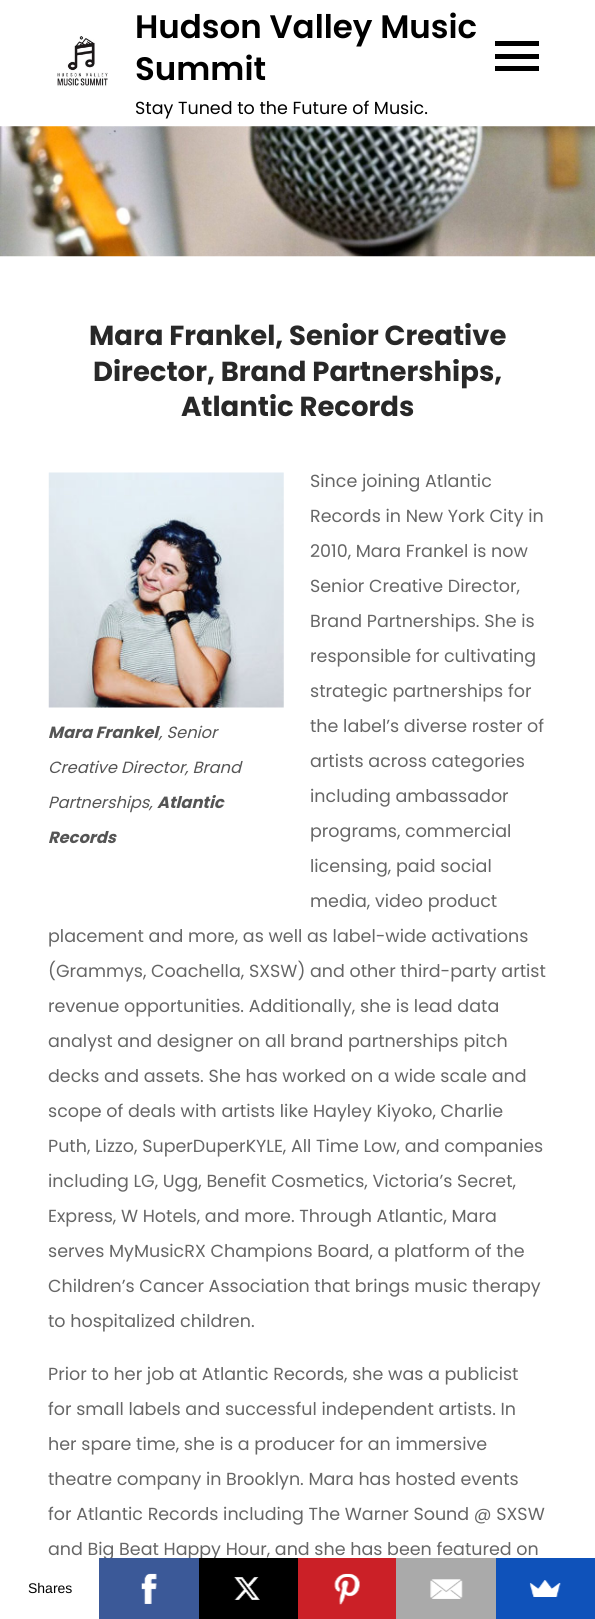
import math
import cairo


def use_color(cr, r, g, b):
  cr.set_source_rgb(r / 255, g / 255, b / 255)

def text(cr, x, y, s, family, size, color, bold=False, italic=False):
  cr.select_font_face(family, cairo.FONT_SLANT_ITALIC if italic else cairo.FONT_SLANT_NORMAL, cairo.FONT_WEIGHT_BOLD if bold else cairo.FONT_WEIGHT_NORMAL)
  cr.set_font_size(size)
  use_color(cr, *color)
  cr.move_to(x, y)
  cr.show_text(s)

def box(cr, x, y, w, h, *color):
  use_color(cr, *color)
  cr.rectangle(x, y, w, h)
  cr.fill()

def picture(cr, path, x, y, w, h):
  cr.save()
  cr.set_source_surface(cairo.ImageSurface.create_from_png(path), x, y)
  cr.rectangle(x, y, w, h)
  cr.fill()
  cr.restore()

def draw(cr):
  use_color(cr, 255, 255, 255)
  cr.paint()
  picture(cr, "img_01.png", 57, 36, 51, 51)
  box(cr, 495, 54, 44, 5, 0, 0, 0)
  box(cr, 495, 41, 44, 5, 0, 0, 0)
  box(cr, 495, 66, 44, 5, 0, 0, 0)
  picture(cr, "img_02.png", 0, 126, 595, 131)
  picture(cr, "img_03.png", 48, 472, 236, 236)
  text(cr, 135, 38, "Hudson Valley Music", "Poppins SemiBold", 32.5, (0, 0, 0))
  text(cr, 135, 80, "Summit", "Poppins SemiBold", 32.5, (0, 0, 0))
  text(cr, 135, 114, "Stay Tuned to the Future of Music.", "Poppins", 17.5, (0, 0, 0))
  text(cr, 89, 345, "Mara Frankel, Senior Creative", "Poppins", 27.5, (40, 40, 40), bold=True)
  text(cr, 93, 381, "Director, Brand Partnerships,", "Poppins", 27.5, (40, 40, 40), bold=True)
  text(cr, 181, 416, "Atlantic Records", "Poppins", 27.5, (40, 40, 40), bold=True)
  text(cr, 310, 487, "Since joining Atlantic", "Poppins", 17.5, (102, 102, 102))
  text(cr, 310, 522, "Records in New York City in", "Poppins", 17.5, (102, 102, 102))
  text(cr, 310, 557, "2010, Mara Frankel is now", "Poppins", 17.5, (102, 102, 102))
  text(cr, 310, 592, "Senior Creative Director,", "Poppins", 17.5, (102, 102, 102))
  text(cr, 310, 627, "Brand Partnerships. She is", "Poppins", 17.5, (102, 102, 102))
  text(cr, 310, 662, "responsible for cultivating", "Poppins", 17.5, (102, 102, 102))
  text(cr, 310, 697, "strategic partnerships for", "Poppins", 17.5, (102, 102, 102))
  text(cr, 310, 732, "the label’s diverse roster of", "Poppins", 17.5, (102, 102, 102))
  text(cr, 310, 767, "artists across categories", "Poppins", 17.5, (102, 102, 102))
  text(cr, 310, 802, "including ambassador", "Poppins", 17.5, (102, 102, 102))
  text(cr, 310, 837, "programs, commercial", "Poppins", 17.5, (102, 102, 102))
  text(cr, 310, 872, "licensing, paid social", "Poppins", 17.5, (102, 102, 102))
  text(cr, 310, 907, "media, video product", "Poppins", 17.5, (102, 102, 102))
  text(cr, 48, 942, "placement and more, as well as label-wide activations", "Poppins", 17.5, (102, 102, 102))
  text(cr, 48, 977, "(Grammys, Coachella, SXSW) and other third-party artist", "Poppins", 17.5, (102, 102, 102))
  text(cr, 48, 1012, "revenue opportunities. Additionally, she is lead data", "Poppins", 17.5, (102, 102, 102))
  text(cr, 48, 1047, "analyst and designer on all brand partnerships pitch", "Poppins", 17.5, (102, 102, 102))
  text(cr, 48, 1082, "decks and assets. She has worked on a wide scale and", "Poppins", 17.5, (102, 102, 102))
  text(cr, 48, 1117, "scope of deals with artists like Hayley Kiyoko, Charlie", "Poppins", 17.5, (102, 102, 102))
  text(cr, 48, 1152, "Puth, Lizzo, SuperDuperKYLE, All Time Low, and companies", "Poppins", 17.5, (102, 102, 102))
  text(cr, 48, 1187, "including LG, Ugg, Benefit Cosmetics, Victoria’s Secret,", "Poppins", 17.5, (102, 102, 102))
  text(cr, 48, 1222, "Express, W Hotels, and more. Through Atlantic, Mara", "Poppins", 17.5, (102, 102, 102))
  text(cr, 48, 1257, "serves MyMusicRX Champions Board, a platform of the", "Poppins", 17.5, (102, 102, 102))
  text(cr, 48, 1292, "Children’s Cancer Association that brings music therapy", "Poppins", 17.5, (102, 102, 102))
  text(cr, 48, 1327, "to hospitalized children.", "Poppins", 17.5, (102, 102, 102))
  text(cr, 48, 738, "Mara Frankel", "Poppins", 16.25, (85, 85, 85), bold=True, italic=True)
  text(cr, 159, 738, ", Senior", "Poppins", 16.25, (85, 85, 85), italic=True)
  text(cr, 48, 773, "Creative Director, Brand", "Poppins", 16.25, (85, 85, 85), italic=True)
  text(cr, 48, 808, "Partnerships,", "Poppins", 16.25, (85, 85, 85), italic=True)
  text(cr, 157, 808, "Atlantic", "Poppins", 16.25, (85, 85, 85), bold=True, italic=True)
  text(cr, 48, 843, "Records", "Poppins", 16.25, (85, 85, 85), bold=True, italic=True)
  text(cr, 48, 1380, "Prior to her job at Atlantic Records, she was a publicist", "Poppins", 17.5, (102, 102, 102))
  text(cr, 48, 1415, "for small labels and successful independent artists. In", "Poppins", 17.5, (102, 102, 102))
  text(cr, 48, 1450, "her spare time, she is a producer for an immersive", "Poppins", 17.5, (102, 102, 102))
  text(cr, 48, 1485, "theatre company in Brooklyn. Mara has hosted events", "Poppins", 17.5, (102, 102, 102))
  text(cr, 48, 1520, "for Atlantic Records including The Warner Sound @ SXSW", "Poppins", 17.5, (102, 102, 102))
  text(cr, 48, 1555, "and Big Beat Happy Hour, and she has been featured on", "Poppins", 17.5, (102, 102, 102))
  text(cr, 28, 1593, "Shares", "Liberation Sans", 14, (0, 0, 0))
  box(cr, 99, 1558, 100, 61, 59, 89, 152)
  picture(cr, "img_04.png", 141, 1573, 16, 31)
  box(cr, 199, 1558, 99, 61, 0, 0, 0)
  picture(cr, "img_05.png", 233, 1577, 27, 23)
  box(cr, 298, 1558, 98, 61, 203, 32, 39)
  picture(cr, "img_06.png", 334, 1573, 26, 32)
  box(cr, 396, 1558, 100, 61, 170, 170, 170)
  picture(cr, "img_07.png", 430, 1579, 33, 20)
  box(cr, 496, 1558, 99, 61, 15, 82, 186)
  picture(cr, "img_08.png", 529, 1580, 32, 17)


surface = cairo.ImageSurface(cairo.FORMAT_RGB24, 595, 1619)
cr = cairo.Context(surface)
options = cairo.FontOptions()
options.set_hint_metrics(cairo.HINT_METRICS_OFF)
options.set_hint_style(cairo.HINT_STYLE_NONE)
cr.set_font_options(options)
cr.set_miter_limit(4)
draw(cr)
surface.write_to_png("out.png")
